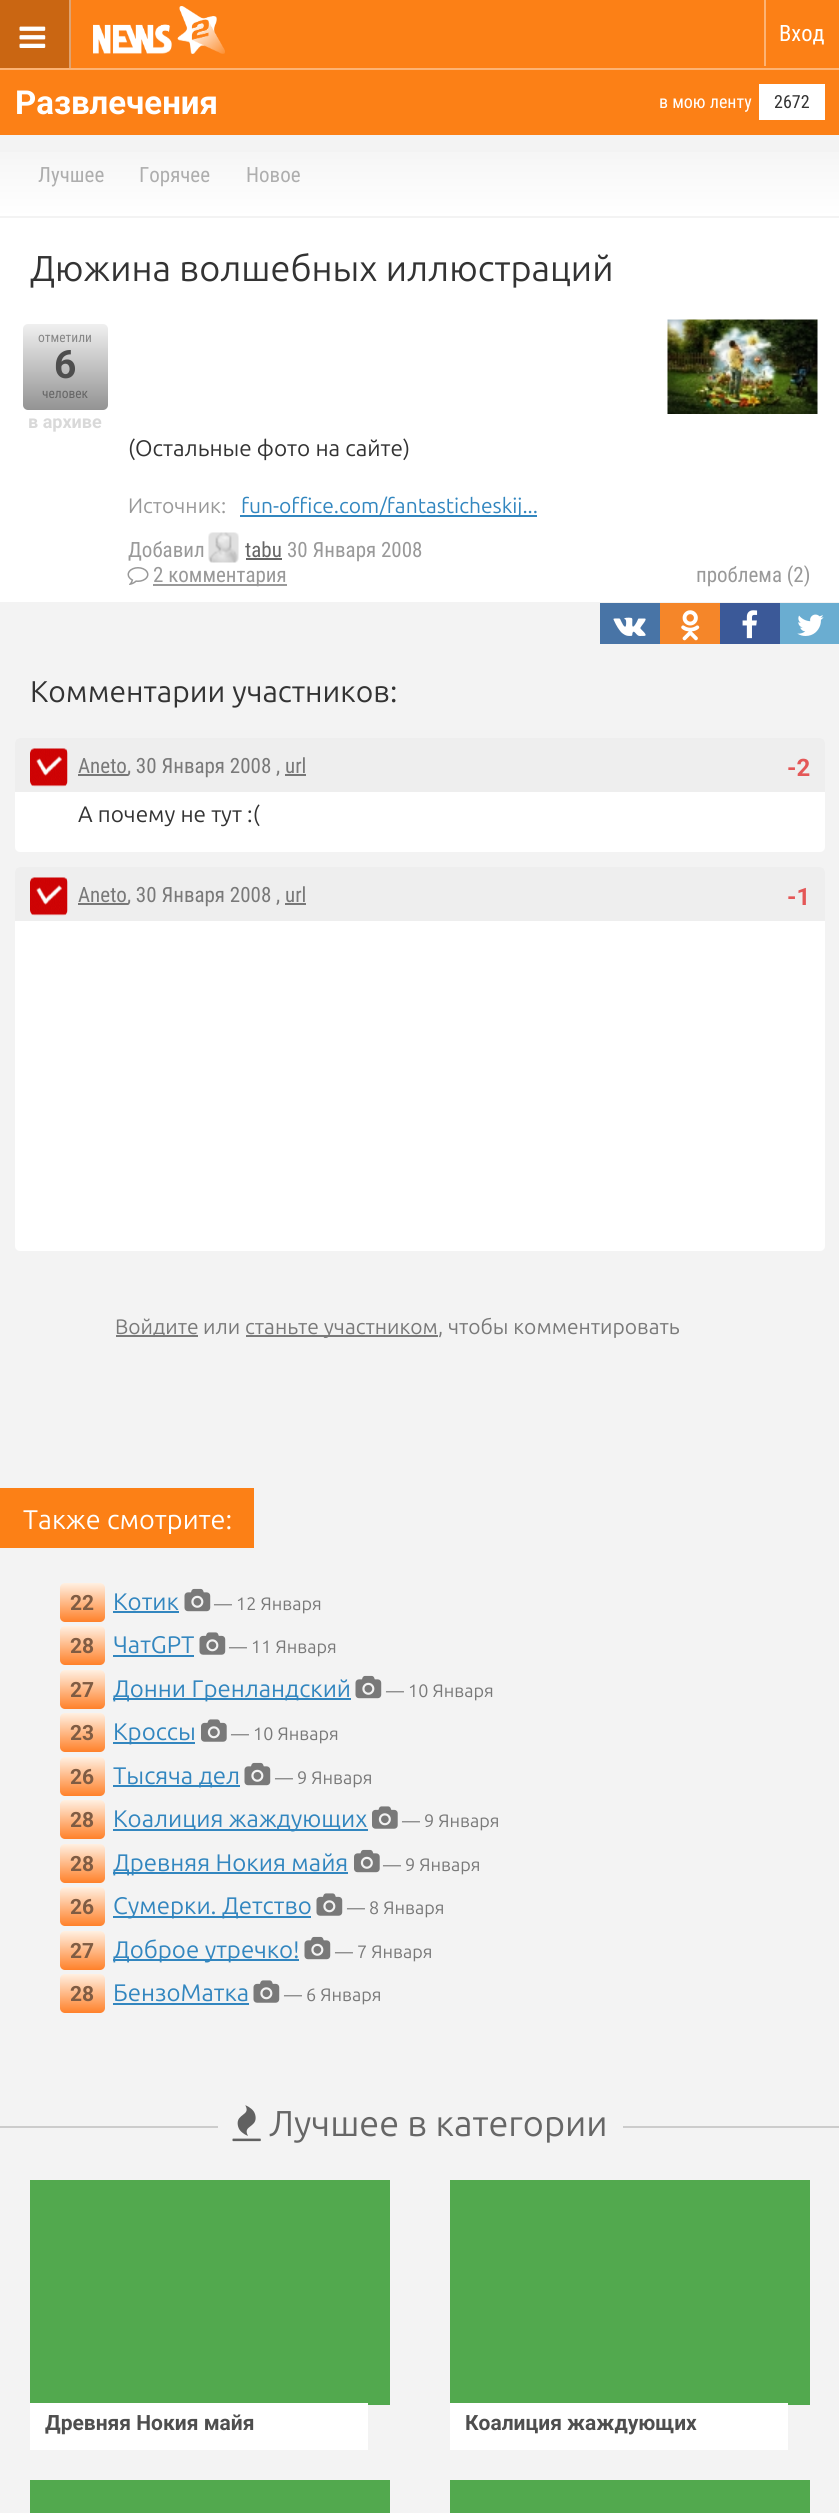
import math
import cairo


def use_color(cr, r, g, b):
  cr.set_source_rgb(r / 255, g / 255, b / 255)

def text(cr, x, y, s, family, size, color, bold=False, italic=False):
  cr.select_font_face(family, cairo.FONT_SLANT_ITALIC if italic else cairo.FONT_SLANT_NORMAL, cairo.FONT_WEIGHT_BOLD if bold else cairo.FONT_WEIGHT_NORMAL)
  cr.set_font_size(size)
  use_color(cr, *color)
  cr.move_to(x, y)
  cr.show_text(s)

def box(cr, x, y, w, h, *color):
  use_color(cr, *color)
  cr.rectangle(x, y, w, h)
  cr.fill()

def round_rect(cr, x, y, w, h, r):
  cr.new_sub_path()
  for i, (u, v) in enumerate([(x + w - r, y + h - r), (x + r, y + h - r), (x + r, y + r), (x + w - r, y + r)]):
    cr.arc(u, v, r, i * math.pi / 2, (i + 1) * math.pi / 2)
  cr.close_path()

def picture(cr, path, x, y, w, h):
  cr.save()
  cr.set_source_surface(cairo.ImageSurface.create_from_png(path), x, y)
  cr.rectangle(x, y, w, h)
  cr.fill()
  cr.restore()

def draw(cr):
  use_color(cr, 243, 243, 243)
  cr.paint()
  box(cr, 0, 0, 839, 135, 252, 128, 22)
  box(cr, 0, 0, 69, 68, 202, 102, 18)
  box(cr, 69, 0, 2, 68, 223, 163, 113)
  picture(cr, "img_01.png", 19, 26, 27, 22)
  picture(cr, "img_02.png", 93, 6, 132, 48)
  box(cr, 764, 0, 2, 66, 253, 179, 115)
  box(cr, 0, 68, 839, 2, 253, 179, 115)
  box(cr, 759, 84, 66, 36, 255, 255, 255)
  gradient = cairo.LinearGradient(420, 135, 420, 216)
  gradient.add_color_stop_rgba(0, 0.953, 0.953, 0.953, 1)
  gradient.add_color_stop_rgba(1, 1, 1, 1, 1)
  cr.set_source(gradient)
  cr.rectangle(0, 152, 839, 64)
  cr.fill()
  box(cr, 0, 218, 839, 384, 255, 255, 255)
  gradient = cairo.LinearGradient(65, 324, 65, 410)
  gradient.add_color_stop_rgba(0, 0.941, 0.941, 0.941, 1)
  gradient.add_color_stop_rgba(1, 0.576, 0.576, 0.576, 1)
  cr.set_source(gradient)
  round_rect(cr, 23, 324, 85, 86, 5)
  cr.fill()
  picture(cr, "img_03.png", 667, 319, 151, 95)
  box(cr, 240, 515, 297, 2, 50, 134, 191)
  picture(cr, "img_04.png", 208, 532, 31, 31)
  box(cr, 246, 558, 36, 2, 102, 102, 102)
  picture(cr, "img_05.png", 127, 567, 22, 18)
  box(cr, 153, 584, 134, 2, 153, 153, 153)
  box(cr, 600, 603, 60, 41, 72, 116, 166)
  picture(cr, "img_06.png", 613, 617, 33, 19)
  box(cr, 660, 603, 60, 41, 245, 134, 41)
  picture(cr, "img_07.png", 681, 610, 19, 31)
  box(cr, 720, 603, 60, 41, 59, 89, 152)
  picture(cr, "img_08.png", 742, 610, 16, 29)
  box(cr, 780, 603, 59, 41, 106, 173, 209)
  picture(cr, "img_09.png", 797, 614, 27, 22)
  use_color(cr, 255, 255, 255)
  round_rect(cr, 15, 738, 810, 114, 5)
  cr.fill()
  use_color(cr, 238, 238, 238)
  cr.new_path()
  cr.move_to(20, 738)
  cr.line_to(820, 738)
  cr.curve_to(823, 738, 825, 740, 825, 743)
  cr.line_to(825, 792)
  cr.line_to(15, 792)
  cr.line_to(15, 743)
  cr.curve_to(15, 740, 17, 738, 20, 738)
  cr.close_path()
  cr.fill()
  picture(cr, "img_10.png", 30, 748, 38, 39)
  box(cr, 78, 774, 50, 2, 119, 119, 119)
  use_color(cr, 255, 255, 255)
  round_rect(cr, 15, 867, 810, 384, 5)
  cr.fill()
  use_color(cr, 238, 238, 238)
  cr.new_path()
  cr.move_to(20, 867)
  cr.line_to(820, 867)
  cr.curve_to(823, 867, 825, 869, 825, 872)
  cr.line_to(825, 921)
  cr.line_to(15, 921)
  cr.line_to(15, 872)
  cr.curve_to(15, 869, 17, 867, 20, 867)
  cr.close_path()
  cr.fill()
  picture(cr, "img_11.png", 30, 877, 38, 39)
  box(cr, 78, 903, 50, 2, 119, 119, 119)
  box(cr, 116, 1335, 82, 2, 122, 122, 122)
  box(cr, 246, 1335, 192, 2, 122, 122, 122)
  box(cr, 0, 1488, 254, 60, 252, 128, 22)
  gradient = cairo.LinearGradient(83, 1583, 83, 1622)
  gradient.add_color_stop_rgba(0, 1, 0.941, 0.886, 1)
  gradient.add_color_stop_rgba(1, 1, 0.506, 0.165, 1)
  cr.set_source(gradient)
  round_rect(cr, 60, 1583, 45, 39, 5)
  cr.fill()
  box(cr, 113, 1611, 66, 2, 50, 134, 191)
  picture(cr, "img_12.png", 184, 1588, 27, 24)
  gradient = cairo.LinearGradient(83, 1626, 83, 1665)
  gradient.add_color_stop_rgba(0, 1, 0.941, 0.886, 1)
  gradient.add_color_stop_rgba(1, 1, 0.506, 0.165, 1)
  cr.set_source(gradient)
  round_rect(cr, 60, 1626, 45, 39, 5)
  cr.fill()
  box(cr, 113, 1655, 81, 2, 50, 134, 191)
  picture(cr, "img_13.png", 199, 1632, 27, 23)
  gradient = cairo.LinearGradient(83, 1670, 83, 1709)
  gradient.add_color_stop_rgba(0, 1, 0.941, 0.886, 1)
  gradient.add_color_stop_rgba(1, 1, 0.506, 0.165, 1)
  cr.set_source(gradient)
  round_rect(cr, 60, 1670, 45, 39, 5)
  cr.fill()
  box(cr, 113, 1698, 238, 2, 50, 134, 191)
  picture(cr, "img_12.png", 355, 1675, 27, 24)
  gradient = cairo.LinearGradient(83, 1713, 83, 1752)
  gradient.add_color_stop_rgba(0, 1, 0.941, 0.886, 1)
  gradient.add_color_stop_rgba(1, 1, 0.506, 0.165, 1)
  cr.set_source(gradient)
  round_rect(cr, 60, 1713, 45, 39, 5)
  cr.fill()
  box(cr, 113, 1742, 82, 2, 50, 134, 191)
  picture(cr, "img_14.png", 201, 1719, 26, 23)
  gradient = cairo.LinearGradient(83, 1757, 83, 1796)
  gradient.add_color_stop_rgba(0, 1, 0.941, 0.886, 1)
  gradient.add_color_stop_rgba(1, 1, 0.506, 0.165, 1)
  cr.set_source(gradient)
  round_rect(cr, 60, 1757, 45, 39, 5)
  cr.fill()
  box(cr, 113, 1785, 127, 2, 50, 134, 191)
  picture(cr, "img_12.png", 244, 1762, 27, 24)
  gradient = cairo.LinearGradient(83, 1800, 83, 1839)
  gradient.add_color_stop_rgba(0, 1, 0.941, 0.886, 1)
  gradient.add_color_stop_rgba(1, 1, 0.506, 0.165, 1)
  cr.set_source(gradient)
  round_rect(cr, 60, 1800, 45, 39, 5)
  cr.fill()
  box(cr, 113, 1829, 255, 2, 50, 134, 191)
  picture(cr, "img_14.png", 372, 1806, 26, 23)
  gradient = cairo.LinearGradient(83, 1844, 83, 1883)
  gradient.add_color_stop_rgba(0, 1, 0.941, 0.886, 1)
  gradient.add_color_stop_rgba(1, 1, 0.506, 0.165, 1)
  cr.set_source(gradient)
  round_rect(cr, 60, 1844, 45, 39, 5)
  cr.fill()
  box(cr, 113, 1872, 235, 2, 50, 134, 191)
  picture(cr, "img_15.png", 354, 1849, 26, 24)
  gradient = cairo.LinearGradient(83, 1887, 83, 1926)
  gradient.add_color_stop_rgba(0, 1, 0.941, 0.886, 1)
  gradient.add_color_stop_rgba(1, 1, 0.506, 0.165, 1)
  cr.set_source(gradient)
  round_rect(cr, 60, 1887, 45, 39, 5)
  cr.fill()
  box(cr, 113, 1916, 198, 2, 50, 134, 191)
  picture(cr, "img_13.png", 316, 1893, 27, 23)
  gradient = cairo.LinearGradient(83, 1931, 83, 1970)
  gradient.add_color_stop_rgba(0, 1, 0.941, 0.886, 1)
  gradient.add_color_stop_rgba(1, 1, 0.506, 0.165, 1)
  cr.set_source(gradient)
  round_rect(cr, 60, 1931, 45, 39, 5)
  cr.fill()
  box(cr, 113, 1959, 186, 2, 50, 134, 191)
  picture(cr, "img_12.png", 304, 1936, 27, 24)
  gradient = cairo.LinearGradient(83, 1974, 83, 2013)
  gradient.add_color_stop_rgba(0, 1, 0.941, 0.886, 1)
  gradient.add_color_stop_rgba(1, 1, 0.506, 0.165, 1)
  cr.set_source(gradient)
  round_rect(cr, 60, 1974, 45, 39, 5)
  cr.fill()
  box(cr, 113, 2003, 136, 2, 50, 134, 191)
  picture(cr, "img_13.png", 253, 1980, 27, 23)
  box(cr, 0, 2126, 839, 2, 204, 204, 204)
  box(cr, 218, 2126, 405, 2, 243, 243, 243)
  picture(cr, "img_16.png", 232, 2105, 29, 37)
  box(cr, 30, 2180, 360, 225, 82, 169, 78)
  box(cr, 30, 2403, 338, 47, 255, 255, 255)
  box(cr, 450, 2180, 360, 225, 82, 169, 78)
  box(cr, 450, 2403, 338, 47, 255, 255, 255)
  box(cr, 30, 2480, 360, 33, 82, 169, 78)
  box(cr, 450, 2480, 360, 33, 82, 169, 78)
  text(cr, 779, 41, "Вход", "Roboto Condensed", 22.5, (255, 255, 255))
  text(cr, 15, 114, "Развлечения", "Roboto", 33, (255, 255, 255), bold=True)
  text(cr, 659, 108, "в мою ленту", "Roboto Condensed", 18, (255, 255, 255))
  text(cr, 774, 108, "2672", "Roboto Condensed", 18, (51, 51, 51))
  text(cr, 38, 182, "Лучшее", "Roboto Condensed", 21, (174, 174, 174))
  text(cr, 139, 182, "Горячее", "Roboto Condensed", 21, (174, 174, 174))
  text(cr, 246, 182, "Новое", "Roboto Condensed", 21, (174, 174, 174))
  text(cr, 30, 281, "Дюжина волшебных иллюстраций", "Ubuntu", 36, (51, 51, 51))
  text(cr, 38, 342, "отметили", "Roboto Condensed", 13.5, (135, 135, 135))
  text(cr, 54, 378, "6", "Roboto", 39, (78, 78, 78), bold=True)
  text(cr, 42, 398, "человек", "Roboto Condensed", 13.5, (102, 102, 102))
  text(cr, 28, 428, "в архиве", "Roboto", 18, (217, 217, 217), bold=True)
  text(cr, 128, 456, "(Остальные фото на сайте)", "Ubuntu", 22.5, (51, 51, 51))
  text(cr, 128, 513, "Источник:", "Ubuntu", 21, (153, 153, 153))
  text(cr, 241, 513, "fun-office.com/fantasticheskij...", "Ubuntu", 21, (50, 134, 191))
  text(cr, 128, 557, "Добавил", "Roboto Condensed", 21, (153, 153, 153))
  text(cr, 245, 557, "tabu", "Roboto Condensed", 21, (102, 102, 102))
  text(cr, 287, 557, "30 Января 2008", "Roboto Condensed", 21, (153, 153, 153))
  text(cr, 153, 582, "2 комментария", "Roboto Condensed", 21, (153, 153, 153))
  text(cr, 696, 582, "проблема (2)", "Roboto Condensed", 21, (153, 153, 153))
  text(cr, 30, 702, "Комментарии участников:", "Ubuntu", 30, (51, 51, 51))
  text(cr, 78, 773, "Aneto, 30 Января 2008 , url", "Roboto Condensed", 21, (121, 121, 121))
  text(cr, 787, 776, "-2", "Roboto", 24, (228, 87, 87), bold=True)
  box(cr, 285, 774, 21, 2, 119, 119, 119)
  text(cr, 78, 822, "А почему не тут :(", "Ubuntu", 22.5, (51, 51, 51))
  text(cr, 78, 902, "Aneto, 30 Января 2008 , url", "Roboto Condensed", 21, (121, 121, 121))
  text(cr, 787, 905, "-1", "Roboto", 24, (228, 87, 87), bold=True)
  box(cr, 285, 903, 21, 2, 119, 119, 119)
  text(cr, 115, 1334, "Войдите", "Ubuntu", 21, (121, 121, 121))
  text(cr, 203, 1334, "или", "Ubuntu", 21, (121, 121, 121))
  text(cr, 245, 1334, "станьте участником", "Ubuntu", 21, (121, 121, 121))
  text(cr, 438, 1334, ", чтобы комментировать", "Ubuntu", 21, (121, 121, 121))
  text(cr, 23, 1529, "Также смотрите:", "Ubuntu", 27, (255, 255, 255))
  text(cr, 70, 1610, "22", "Roboto", 21, (128, 92, 67), bold=True)
  text(cr, 113, 1610, "Котик", "Ubuntu", 24, (50, 134, 191))
  text(cr, 214, 1610, "— 12 Января", "Ubuntu", 18, (121, 121, 121))
  text(cr, 70, 1653, "28", "Roboto", 21, (128, 92, 67), bold=True)
  text(cr, 113, 1653, "ЧатGPT", "Ubuntu", 24, (50, 134, 191))
  text(cr, 229, 1653, "— 11 Января", "Ubuntu", 18, (121, 121, 121))
  text(cr, 70, 1697, "27", "Roboto", 21, (128, 92, 67), bold=True)
  text(cr, 113, 1697, "Донни Гренландский", "Ubuntu", 24, (50, 134, 191))
  text(cr, 386, 1697, "— 10 Января", "Ubuntu", 18, (121, 121, 121))
  text(cr, 70, 1740, "23", "Roboto", 21, (128, 92, 67), bold=True)
  text(cr, 113, 1740, "Кроссы", "Ubuntu", 24, (50, 134, 191))
  text(cr, 231, 1740, "— 10 Января", "Ubuntu", 18, (121, 121, 121))
  text(cr, 70, 1784, "26", "Roboto", 21, (128, 92, 67), bold=True)
  text(cr, 113, 1784, "Тысяча дел", "Ubuntu", 24, (50, 134, 191))
  text(cr, 275, 1784, "— 9 Января", "Ubuntu", 18, (121, 121, 121))
  text(cr, 70, 1827, "28", "Roboto", 21, (128, 92, 67), bold=True)
  text(cr, 113, 1827, "Коалиция жаждующих", "Ubuntu", 24, (50, 134, 191))
  text(cr, 402, 1827, "— 9 Января", "Ubuntu", 18, (121, 121, 121))
  text(cr, 70, 1871, "28", "Roboto", 21, (128, 92, 67), bold=True)
  text(cr, 113, 1871, "Древняя Нокия майя", "Ubuntu", 24, (50, 134, 191))
  text(cr, 383, 1871, "— 9 Января", "Ubuntu", 18, (121, 121, 121))
  text(cr, 70, 1914, "26", "Roboto", 21, (128, 92, 67), bold=True)
  text(cr, 113, 1914, "Сумерки. Детство", "Ubuntu", 24, (50, 134, 191))
  text(cr, 347, 1914, "— 8 Января", "Ubuntu", 18, (121, 121, 121))
  text(cr, 70, 1958, "27", "Roboto", 21, (128, 92, 67), bold=True)
  text(cr, 113, 1958, "Доброе утречко!", "Ubuntu", 24, (50, 134, 191))
  text(cr, 335, 1958, "— 7 Января", "Ubuntu", 18, (121, 121, 121))
  text(cr, 70, 2001, "28", "Roboto", 21, (128, 92, 67), bold=True)
  text(cr, 113, 2001, "БензоМатка", "Ubuntu", 24, (50, 134, 191))
  text(cr, 284, 2001, "— 6 Января", "Ubuntu", 18, (121, 121, 121))
  text(cr, 269, 2136, "Лучшее в категории", "Ubuntu", 36, (102, 102, 102))
  text(cr, 45, 2430, "Древняя Нокия майя", "Roboto", 21, (78, 78, 78), bold=True)
  text(cr, 465, 2430, "Коалиция жаждующих", "Roboto", 21, (78, 78, 78), bold=True)


surface = cairo.ImageSurface(cairo.FORMAT_RGB24, 839, 2513)
cr = cairo.Context(surface)
options = cairo.FontOptions()
options.set_hint_metrics(cairo.HINT_METRICS_OFF)
options.set_hint_style(cairo.HINT_STYLE_NONE)
cr.set_font_options(options)
cr.set_miter_limit(4)
draw(cr)
surface.write_to_png("out.png")
